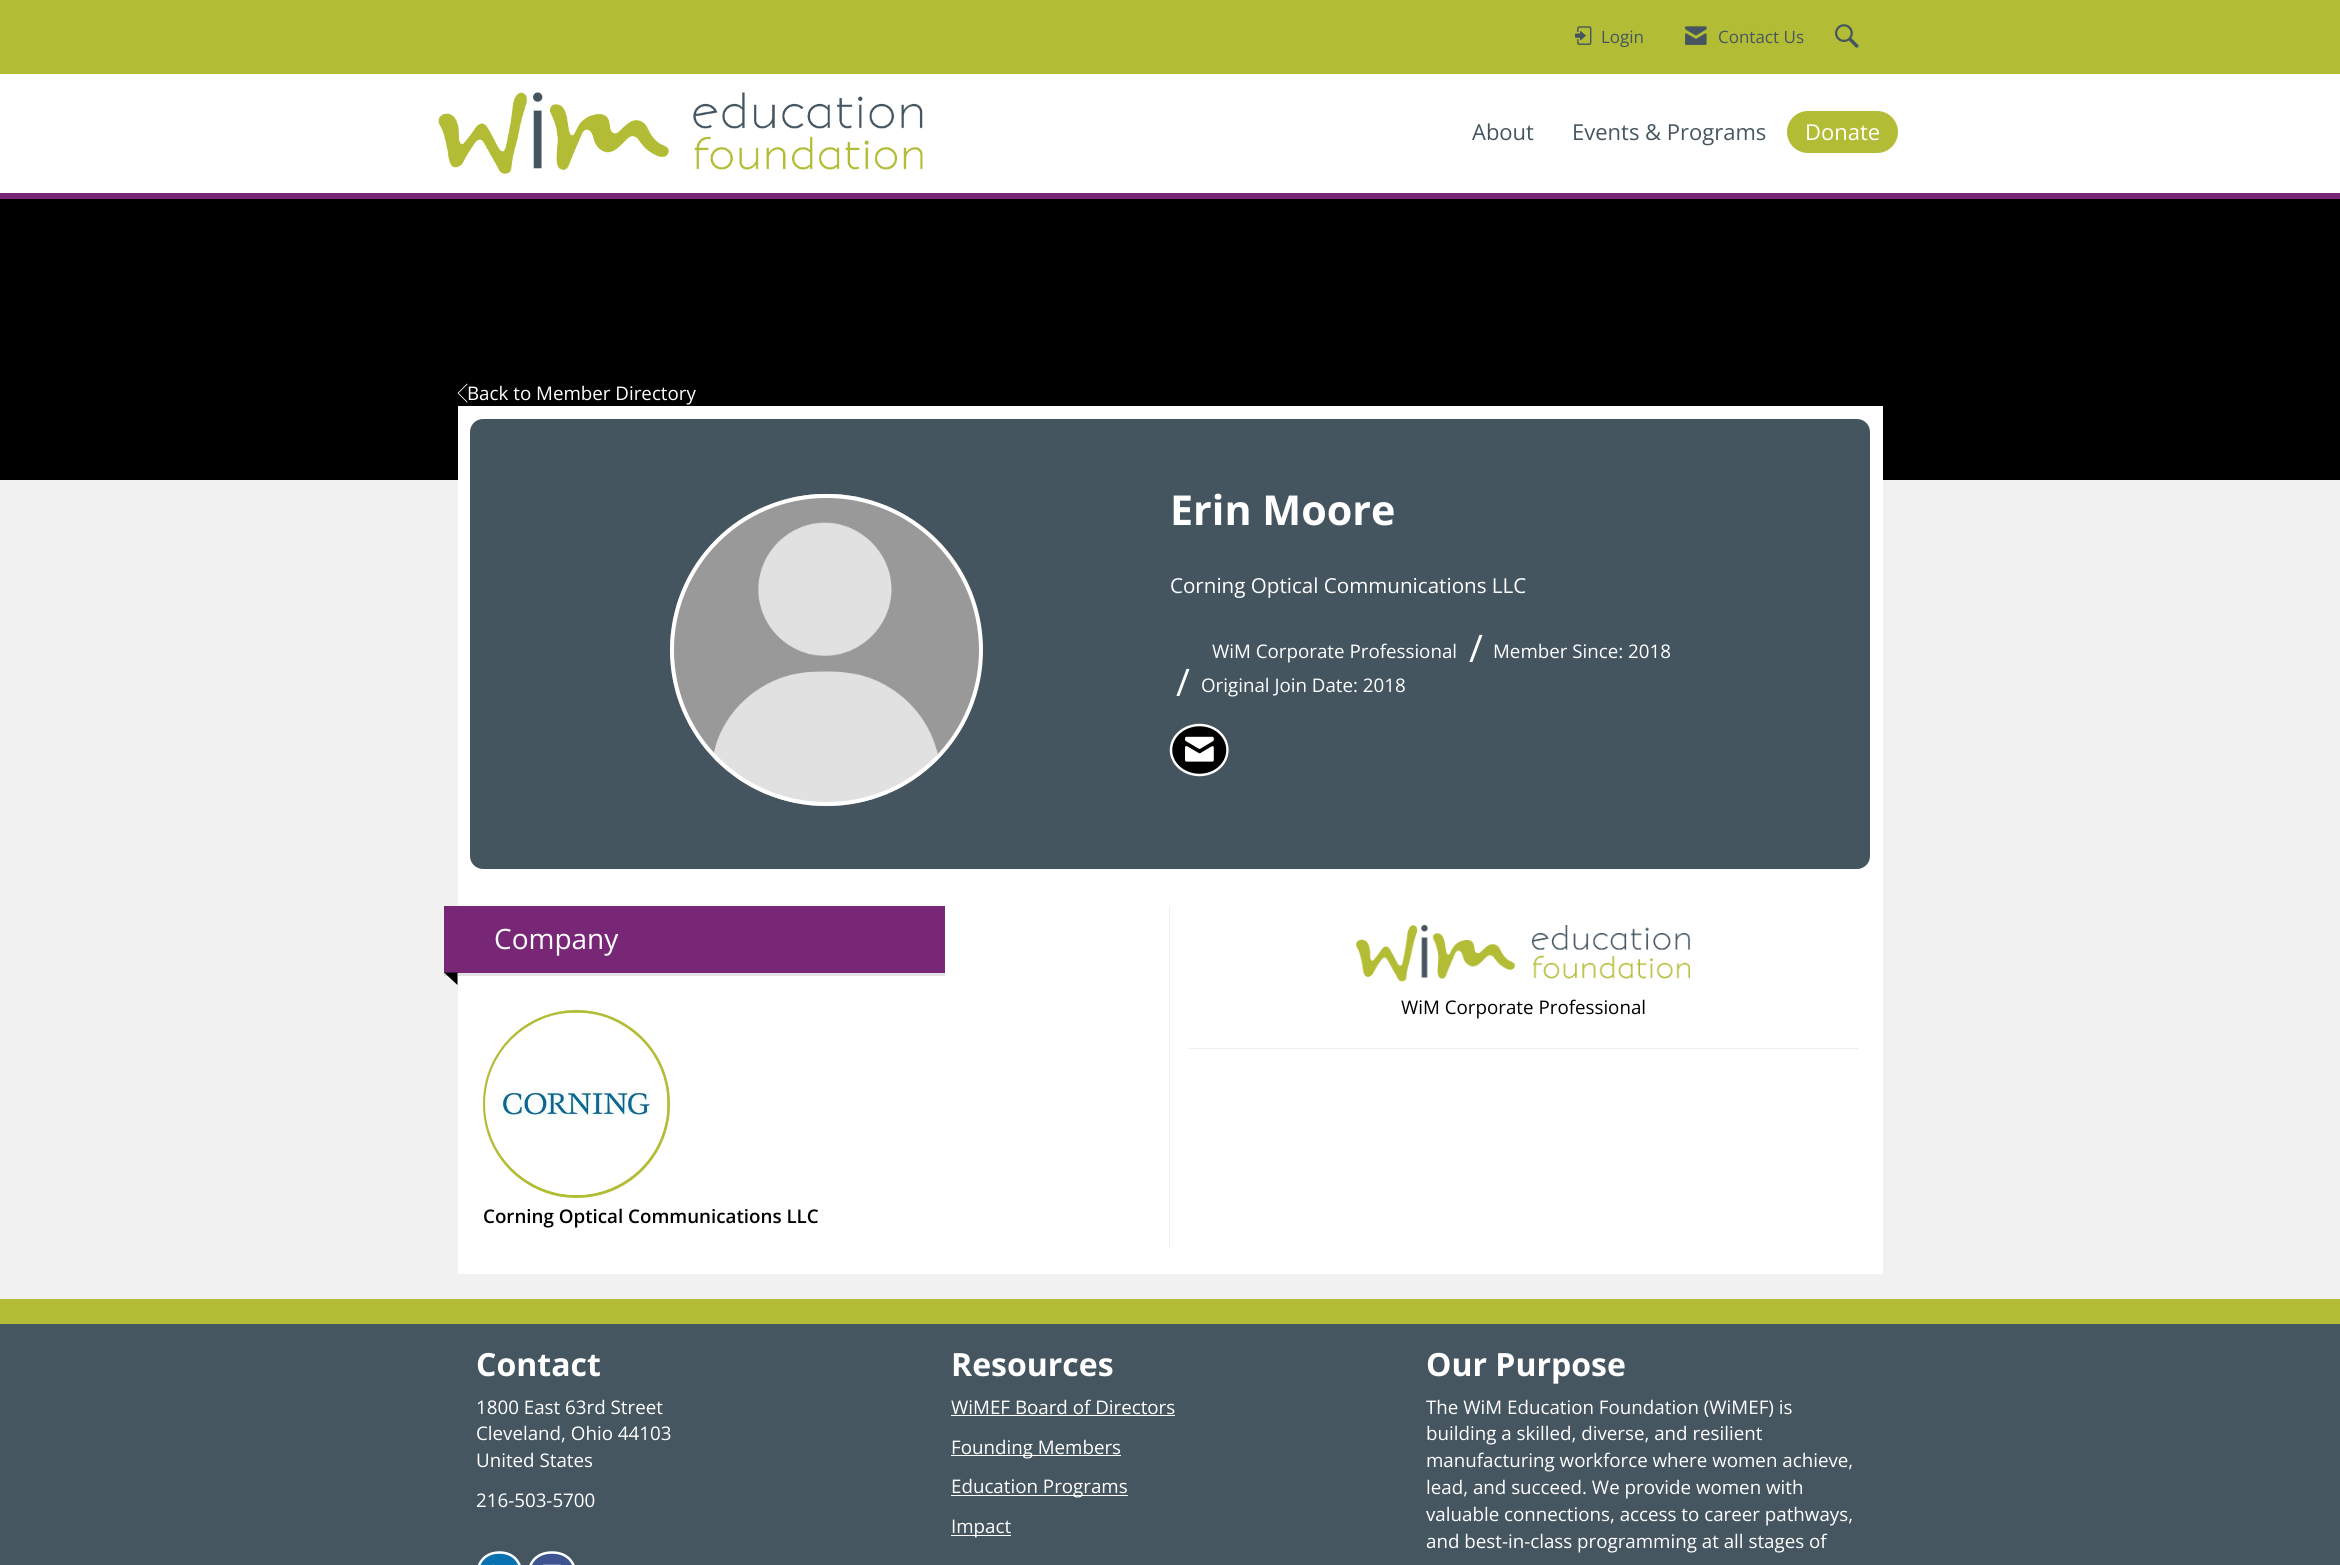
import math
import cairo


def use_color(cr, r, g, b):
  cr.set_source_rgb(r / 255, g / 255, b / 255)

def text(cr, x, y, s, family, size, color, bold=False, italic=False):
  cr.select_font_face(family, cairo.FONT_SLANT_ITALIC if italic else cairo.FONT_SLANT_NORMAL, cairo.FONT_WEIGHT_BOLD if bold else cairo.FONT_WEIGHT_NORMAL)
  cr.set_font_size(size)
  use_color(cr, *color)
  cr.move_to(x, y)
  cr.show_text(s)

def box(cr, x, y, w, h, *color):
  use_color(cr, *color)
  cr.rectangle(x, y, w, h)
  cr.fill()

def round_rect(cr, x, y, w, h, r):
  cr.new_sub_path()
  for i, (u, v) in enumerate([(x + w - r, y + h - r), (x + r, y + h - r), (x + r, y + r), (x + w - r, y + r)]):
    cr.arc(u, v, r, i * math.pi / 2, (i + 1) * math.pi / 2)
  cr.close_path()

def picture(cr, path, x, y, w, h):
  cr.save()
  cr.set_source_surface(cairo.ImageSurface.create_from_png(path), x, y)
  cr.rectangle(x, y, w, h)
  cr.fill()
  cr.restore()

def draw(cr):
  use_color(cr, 241, 241, 241)
  cr.paint()
  box(cr, 444, 973, 14, 3, 214, 214, 214)
  box(cr, 0, 74, 2340, 119, 255, 255, 255)
  box(cr, 0, 193, 2340, 6, 119, 39, 118)
  box(cr, 0, 0, 2340, 74, 179, 188, 53)
  picture(cr, "img_01.png", 1575, 26, 17, 19)
  picture(cr, "img_02.png", 1685, 26, 22, 19)
  picture(cr, "img_03.png", 1835, 24, 24, 24)
  picture(cr, "img_04.png", 438, 92, 485, 82)
  round_rect(cr, 1785.5, 109.5, 114, 45, 22.5)
  cr.fill_preserve()
  use_color(cr, 255, 255, 255)
  cr.set_line_width(3)
  cr.stroke()
  box(cr, 0, 199, 2340, 281, 0, 0, 0)
  picture(cr, "img_05.png", 457, 383, 11, 20)
  box(cr, 458, 406, 1425, 868, 255, 255, 255)
  box(cr, 458, 973, 487, 3, 227, 227, 227)
  use_color(cr, 69, 85, 96)
  round_rect(cr, 470, 419, 1400, 450, 13)
  cr.fill()
  picture(cr, "img_06.png", 670, 493, 313, 314)
  round_rect(cr, 672, 496, 309, 308, 154)
  use_color(cr, 255, 255, 255)
  cr.set_line_width(4)
  cr.stroke()
  use_color(cr, 0, 0, 0)
  cr.new_path()
  cr.move_to(1199.5, 724)
  cr.curve_to(1216, 724, 1229, 735.5, 1229, 750)
  cr.curve_to(1229, 764.5, 1216, 776, 1199.5, 776)
  cr.curve_to(1183, 776, 1170, 764.5, 1170, 750)
  cr.curve_to(1170, 735.5, 1183, 724, 1199.5, 724)
  cr.close_path()
  cr.fill()
  cr.new_path()
  cr.move_to(1199.5, 725)
  cr.curve_to(1215, 725, 1227.5, 736, 1227.5, 750)
  cr.curve_to(1227.5, 764, 1215, 775, 1199.5, 775)
  cr.curve_to(1184, 775, 1171, 764, 1171, 750)
  cr.curve_to(1171, 736, 1184, 725, 1199.5, 725)
  cr.close_path()
  use_color(cr, 255, 255, 255)
  cr.set_line_width(2.5)
  cr.stroke()
  picture(cr, "img_07.png", 1185, 736, 29, 26)
  box(cr, 1169, 906, 1, 343, 241, 241, 241)
  box(cr, 444, 906, 501, 67, 119, 39, 118)
  use_color(cr, 0, 0, 0)
  cr.new_path()
  cr.move_to(444, 972.5)
  cr.line_to(457.5, 972.5)
  cr.line_to(457.5, 985)
  cr.close_path()
  cr.fill()
  round_rect(cr, 484.5, 1011.5, 184, 185, 92)
  use_color(cr, 179, 188, 53)
  cr.set_line_width(3)
  cr.stroke()
  picture(cr, "img_08.png", 485, 1012, 183, 183)
  picture(cr, "img_09.png", 1356, 925, 334, 57)
  box(cr, 1189, 1048, 669, 1, 238, 238, 238)
  box(cr, 0, 1299, 2340, 25, 179, 188, 53)
  box(cr, 0, 1324, 2340, 241, 70, 86, 96)
  use_color(cr, 9, 114, 177)
  cr.new_path()
  cr.move_to(499.5, 1551.5)
  cr.curve_to(512, 1551.5, 522.5, 1561, 522.5, 1572.5)
  cr.curve_to(522.5, 1584, 512, 1593.5, 499.5, 1593.5)
  cr.curve_to(487, 1593.5, 476.5, 1584, 476.5, 1572.5)
  cr.curve_to(476.5, 1561, 487, 1551.5, 499.5, 1551.5)
  cr.close_path()
  cr.fill()
  cr.new_path()
  cr.move_to(499.5, 1552.5)
  cr.curve_to(528, 1552.5, 528, 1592.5, 499.5, 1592.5)
  cr.curve_to(470.5, 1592.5, 470.5, 1552.5, 499.5, 1552.5)
  cr.close_path()
  use_color(cr, 255, 255, 255)
  cr.set_line_width(2.5)
  cr.stroke()
  picture(cr, "img_10.png", 492, 1564, 3, 1)
  use_color(cr, 62, 84, 145)
  cr.new_path()
  cr.move_to(552, 1551.5)
  cr.curve_to(565.5, 1551.5, 576.5, 1561, 576.5, 1572.5)
  cr.curve_to(576.5, 1584, 565.5, 1593.5, 552, 1593.5)
  cr.curve_to(538.5, 1593.5, 527.5, 1584, 527.5, 1572.5)
  cr.curve_to(527.5, 1561, 538.5, 1551.5, 552, 1551.5)
  cr.close_path()
  cr.fill()
  cr.new_path()
  cr.move_to(552, 1552.5)
  cr.curve_to(582.5, 1552.5, 582.5, 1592.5, 552, 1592.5)
  cr.curve_to(521.5, 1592.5, 521.5, 1552.5, 552, 1552.5)
  cr.close_path()
  use_color(cr, 255, 255, 255)
  cr.stroke()
  picture(cr, "img_11.png", 543, 1564, 18, 1)
  box(cr, 951, 1415, 224, 1, 255, 255, 255)
  box(cr, 951, 1455, 170, 1, 255, 255, 255)
  box(cr, 951, 1495, 177, 1, 255, 255, 255)
  box(cr, 951, 1535, 60, 1, 255, 255, 255)
  text(cr, 1601, 43, "Login", "Open Sans", 17, (70, 86, 96))
  text(cr, 1718, 43, "Contact Us", "Open Sans", 17, (70, 86, 96))
  text(cr, 1472, 140, "About", "Open Sans", 22, (70, 86, 96))
  text(cr, 1572, 140, "Events & Programs", "Open Sans", 22, (70, 86, 96))
  text(cr, 1805, 140, "Donate", "Open Sans", 22, (255, 255, 255))
  text(cr, 467, 400, "Back to Member Directory", "Open Sans", 18.75, (255, 255, 255))
  text(cr, 1170, 525, "Erin Moore", "Open Sans", 41.25, (255, 255, 255), bold=True)
  text(cr, 1170, 593, "Corning Optical Communications LLC", "Open Sans", 20.6, (255, 255, 255))
  text(cr, 1212, 658, "WiM Corporate Professional", "Open Sans", 18.75, (255, 255, 255))
  text(cr, 1469, 662, "/", "Open Sans", 38, (255, 255, 255))
  text(cr, 1493, 658, "Member Since: 2018", "Open Sans", 18.75, (255, 255, 255))
  text(cr, 1176, 696, "/", "Open Sans", 38, (255, 255, 255))
  text(cr, 1201, 692, "Original Join Date: 2018", "Open Sans", 18.75, (255, 255, 255))
  text(cr, 494, 949, "Company", "Open Sans", 28, (255, 255, 255))
  text(cr, 483, 1223, "Corning Optical Communications LLC", "Open Sans SemiBold", 18.75, (0, 0, 0))
  text(cr, 1401, 1014, "WiM Corporate Professional", "Open Sans", 18.75, (0, 0, 0))
  text(cr, 476, 1376, "Contact", "Open Sans", 32, (255, 255, 255), bold=True)
  text(cr, 476, 1414, "1800 East 63rd Street", "Open Sans", 18.75, (255, 255, 255))
  text(cr, 476, 1440, "Cleveland, Ohio 44103", "Open Sans", 18.75, (255, 255, 255))
  text(cr, 476, 1467, "United States", "Open Sans", 18.75, (255, 255, 255))
  text(cr, 476, 1507, "216-503-5700", "Open Sans", 18.75, (255, 255, 255))
  text(cr, 951, 1376, "Resources", "Open Sans", 32, (255, 255, 255), bold=True)
  text(cr, 951, 1414, "WiMEF Board of Directors", "Open Sans", 18.75, (255, 255, 255))
  text(cr, 951, 1454, "Founding Members", "Open Sans", 18.75, (255, 255, 255))
  text(cr, 951, 1493, "Education Programs", "Open Sans", 18.75, (255, 255, 255))
  text(cr, 951, 1533, "Impact", "Open Sans", 18.75, (255, 255, 255))
  text(cr, 1426, 1376, "Our Purpose", "Open Sans", 32, (255, 255, 255), bold=True)
  text(cr, 1426, 1414, "The WiM Education Foundation (WiMEF) is", "Open Sans", 18.75, (255, 255, 255))
  text(cr, 1426, 1440, "building a skilled, diverse, and resilient", "Open Sans", 18.75, (255, 255, 255))
  text(cr, 1426, 1467, "manufacturing workforce where women achieve,", "Open Sans", 18.75, (255, 255, 255))
  text(cr, 1426, 1494, "lead, and succeed. We provide women with", "Open Sans", 18.75, (255, 255, 255))
  text(cr, 1426, 1521, "valuable connections, access to career pathways,", "Open Sans", 18.75, (255, 255, 255))
  text(cr, 1426, 1548, "and best-in-class programming at all stages of", "Open Sans", 18.75, (255, 255, 255))


surface = cairo.ImageSurface(cairo.FORMAT_RGB24, 2340, 1565)
cr = cairo.Context(surface)
options = cairo.FontOptions()
options.set_hint_metrics(cairo.HINT_METRICS_OFF)
options.set_hint_style(cairo.HINT_STYLE_NONE)
cr.set_font_options(options)
cr.set_miter_limit(4)
draw(cr)
surface.write_to_png("out.png")
